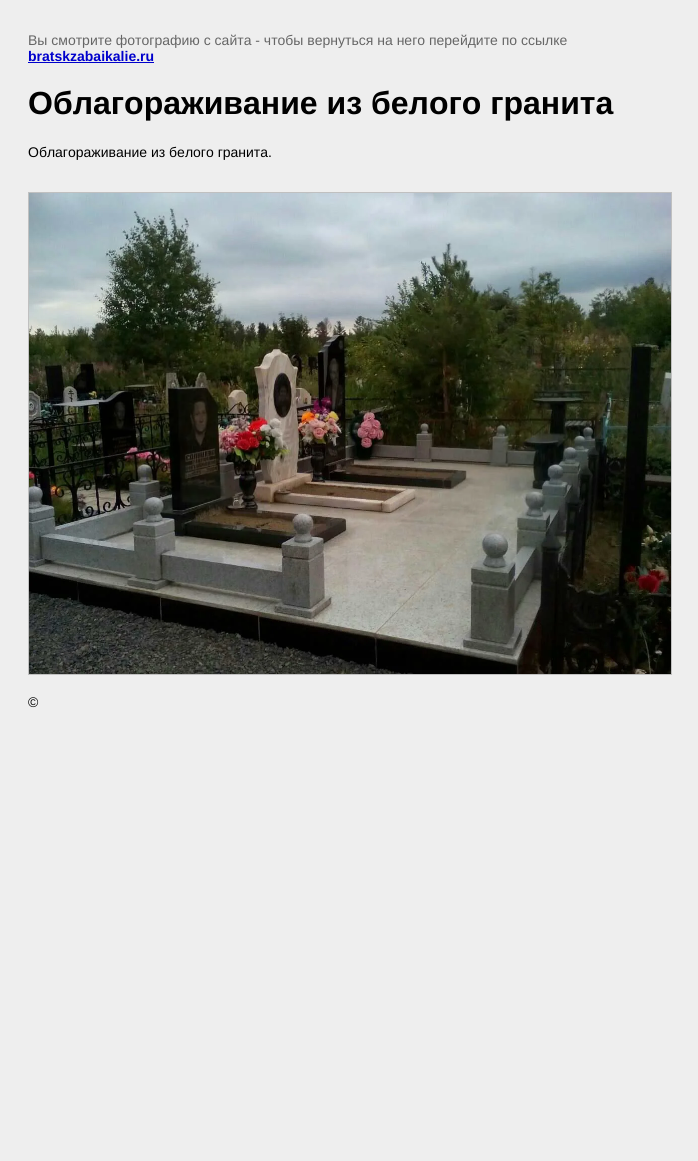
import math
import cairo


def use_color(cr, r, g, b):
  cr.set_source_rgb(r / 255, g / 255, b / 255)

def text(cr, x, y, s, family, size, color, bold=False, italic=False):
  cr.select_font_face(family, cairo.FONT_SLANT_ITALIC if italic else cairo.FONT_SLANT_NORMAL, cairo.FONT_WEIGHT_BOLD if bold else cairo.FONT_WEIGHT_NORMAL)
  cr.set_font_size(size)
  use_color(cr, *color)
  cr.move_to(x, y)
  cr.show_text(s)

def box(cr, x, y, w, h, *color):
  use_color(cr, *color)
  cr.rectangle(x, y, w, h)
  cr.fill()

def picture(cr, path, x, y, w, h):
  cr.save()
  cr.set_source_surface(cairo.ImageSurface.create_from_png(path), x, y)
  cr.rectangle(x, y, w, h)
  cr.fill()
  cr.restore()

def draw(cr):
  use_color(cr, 238, 238, 238)
  cr.paint()
  box(cr, 28, 62, 126, 1, 0, 0, 204)
  cr.rectangle(28.5, 192.5, 643, 482)
  use_color(cr, 192, 192, 192)
  cr.set_line_width(1)
  cr.stroke()
  picture(cr, "img_01.png", 29, 193, 642, 481)
  text(cr, 28, 45, "Вы смотрите фотографию с сайта - чтобы вернуться на него перейдите по ссылке", "Liberation Sans", 14, (102, 102, 102))
  text(cr, 28, 61, "bratskzabaikalie.ru", "Liberation Sans", 14, (0, 0, 204), bold=True)
  text(cr, 28, 114, "Облагораживание из белого гранита", "Liberation Sans", 32, (0, 0, 0), bold=True)
  text(cr, 28, 157, "Облагораживание из белого гранита.", "Liberation Sans", 14, (0, 0, 0))
  text(cr, 28, 707, "©", "Liberation Sans", 14, (0, 0, 0))


surface = cairo.ImageSurface(cairo.FORMAT_RGB24, 698, 1161)
cr = cairo.Context(surface)
options = cairo.FontOptions()
options.set_hint_metrics(cairo.HINT_METRICS_OFF)
options.set_hint_style(cairo.HINT_STYLE_NONE)
cr.set_font_options(options)
cr.set_miter_limit(4)
draw(cr)
surface.write_to_png("out.png")
